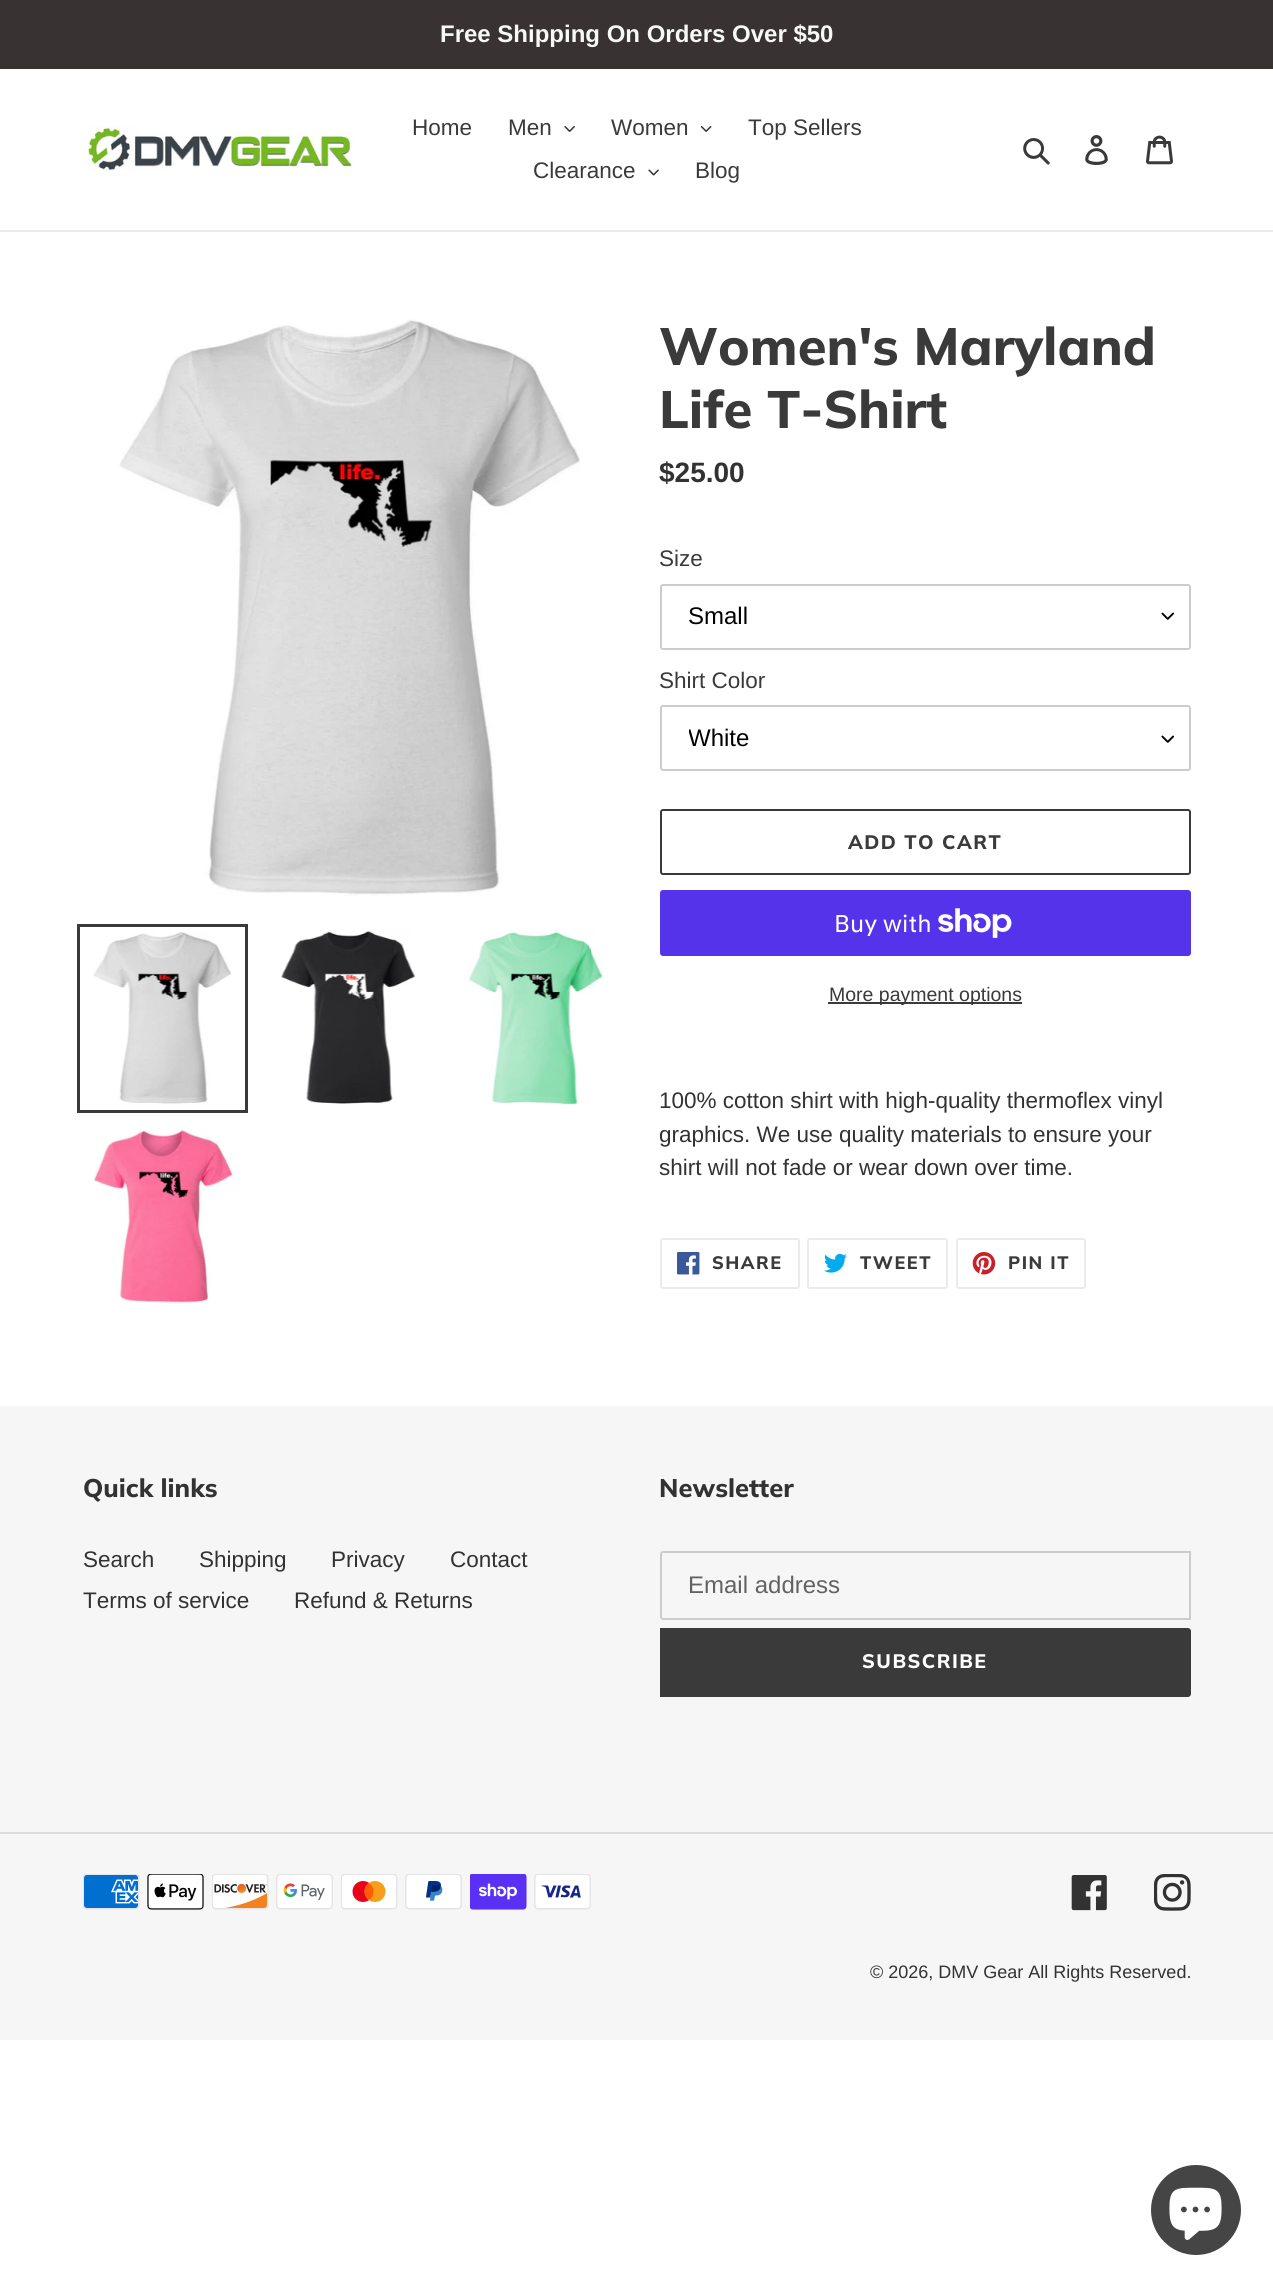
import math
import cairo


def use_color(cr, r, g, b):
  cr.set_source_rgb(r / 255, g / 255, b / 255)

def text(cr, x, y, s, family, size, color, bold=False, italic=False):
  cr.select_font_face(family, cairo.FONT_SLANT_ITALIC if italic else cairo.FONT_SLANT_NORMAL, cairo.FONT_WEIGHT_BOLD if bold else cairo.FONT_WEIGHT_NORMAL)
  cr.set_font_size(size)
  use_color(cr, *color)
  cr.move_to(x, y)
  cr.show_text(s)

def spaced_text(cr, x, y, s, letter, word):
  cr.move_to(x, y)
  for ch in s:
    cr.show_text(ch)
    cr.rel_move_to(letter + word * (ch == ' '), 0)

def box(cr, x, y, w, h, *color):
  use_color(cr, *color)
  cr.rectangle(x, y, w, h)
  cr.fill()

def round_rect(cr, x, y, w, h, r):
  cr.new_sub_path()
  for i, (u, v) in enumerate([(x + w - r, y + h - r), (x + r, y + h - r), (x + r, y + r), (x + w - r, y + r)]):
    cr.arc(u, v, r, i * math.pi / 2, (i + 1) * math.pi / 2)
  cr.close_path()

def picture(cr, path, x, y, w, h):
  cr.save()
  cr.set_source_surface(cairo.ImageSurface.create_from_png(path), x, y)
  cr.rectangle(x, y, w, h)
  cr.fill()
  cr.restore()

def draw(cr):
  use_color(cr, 255, 255, 255)
  cr.paint()
  box(cr, 0, 0, 1273, 69, 56, 50, 50)
  box(cr, 0, 230, 1273, 2, 235, 235, 235)
  picture(cr, "img_01.png", 88, 126, 266, 45)
  picture(cr, "img_02.png", 564, 126, 11, 6)
  picture(cr, "img_03.png", 701, 126, 11, 6)
  picture(cr, "img_04.png", 648, 169, 11, 7)
  picture(cr, "img_05.png", 1023, 138, 27, 27)
  picture(cr, "img_06.png", 1085, 135, 23, 30)
  picture(cr, "img_07.png", 1146, 135, 27, 30)
  picture(cr, "img_08.png", 119, 319, 461, 577)
  cr.rectangle(78.5, 925.5, 168, 186)
  use_color(cr, 58, 58, 58)
  cr.set_line_width(3)
  cr.stroke()
  picture(cr, "img_09.png", 93, 932, 139, 172)
  picture(cr, "img_10.png", 281, 930, 135, 174)
  picture(cr, "img_11.png", 468, 930, 135, 175)
  picture(cr, "img_12.png", 93, 1128, 144, 176)
  picture(cr, "img_13.png", 1161, 612, 14, 8)
  round_rect(cr, 661, 585, 529, 64, 2)
  use_color(cr, 204, 204, 204)
  cr.set_line_width(2)
  cr.stroke()
  picture(cr, "img_13.png", 1161, 735, 14, 8)
  round_rect(cr, 661, 706, 529, 64, 2)
  cr.stroke()
  round_rect(cr, 661, 810, 529, 64, 2)
  use_color(cr, 58, 58, 58)
  cr.stroke()
  use_color(cr, 84, 51, 235)
  round_rect(cr, 660, 890, 531, 66, 3)
  cr.fill()
  picture(cr, "img_14.png", 938, 908, 74, 30)
  box(cr, 828, 1002, 194, 2, 58, 58, 58)
  round_rect(cr, 661, 1239, 138, 49, 2)
  use_color(cr, 235, 235, 235)
  cr.stroke()
  picture(cr, "img_15.png", 677, 1252, 23, 23)
  round_rect(cr, 808, 1239, 139, 49, 2)
  cr.stroke()
  picture(cr, "img_16.png", 824, 1253, 23, 20)
  round_rect(cr, 957, 1239, 128, 49, 2)
  cr.stroke()
  picture(cr, "img_17.png", 972, 1252, 24, 23)
  box(cr, 0, 1406, 1273, 634, 246, 246, 246)
  cr.new_path()
  cr.move_to(663, 1552)
  cr.line_to(1190, 1552)
  cr.line_to(1190, 1619)
  cr.line_to(663, 1619)
  cr.curve_to(662, 1619, 661, 1618, 661, 1617)
  cr.line_to(661, 1554)
  cr.curve_to(661, 1553, 662, 1552, 663, 1552)
  cr.close_path()
  use_color(cr, 204, 204, 204)
  cr.stroke()
  use_color(cr, 58, 58, 58)
  cr.new_path()
  cr.move_to(660, 1628)
  cr.line_to(1188, 1628)
  cr.curve_to(1189.5, 1628, 1191, 1629.5, 1191, 1631)
  cr.line_to(1191, 1694)
  cr.curve_to(1191, 1695.5, 1189.5, 1697, 1188, 1697)
  cr.line_to(660, 1697)
  cr.close_path()
  cr.fill()
  box(cr, 0, 1832, 1273, 2, 221, 221, 221)
  picture(cr, "img_18.png", 83, 1874, 57, 36)
  picture(cr, "img_19.png", 147, 1874, 57, 36)
  picture(cr, "img_20.png", 212, 1874, 57, 36)
  picture(cr, "img_21.png", 276, 1874, 57, 36)
  picture(cr, "img_22.png", 341, 1874, 57, 36)
  picture(cr, "img_23.png", 405, 1874, 57, 36)
  picture(cr, "img_24.png", 470, 1874, 57, 36)
  picture(cr, "img_25.png", 534, 1874, 57, 36)
  picture(cr, "img_26.png", 1071, 1875, 36, 36)
  picture(cr, "img_27.png", 1154, 1874, 37, 37)
  use_color(cr, 69, 69, 69)
  cr.arc(1196, 2210, 45, 0, 2 * math.pi)
  cr.fill()
  picture(cr, "img_28.png", 1169, 2187, 53, 53)
  text(cr, 440, 42, "Free Shipping On Orders Over $50", "Liberation Sans", 24, (248, 248, 248), bold=True)
  text(cr, 412, 135, "Home", "Liberation Sans", 22.5, (58, 58, 58))
  text(cr, 508, 135, "Men", "Liberation Sans", 22.5, (58, 58, 58))
  text(cr, 611, 135, "Women", "Liberation Sans", 22.5, (58, 58, 58))
  text(cr, 748, 135, "Top Sellers", "Liberation Sans", 22.5, (58, 58, 58))
  text(cr, 533, 178, "Clearance", "Liberation Sans", 22.5, (58, 58, 58))
  text(cr, 695, 178, "Blog", "Liberation Sans", 22.5, (58, 58, 58))
  text(cr, 659, 365, "Women's Maryland", "Muli ExtraBold", 52.5, (58, 58, 58))
  text(cr, 659, 428, "Life T-Shirt", "Muli ExtraBold", 52.5, (58, 58, 58))
  text(cr, 659, 482, "$25.00", "Liberation Sans", 28, (51, 50, 50), bold=True)
  text(cr, 659, 566, "Size", "Liberation Sans", 22.5, (58, 58, 58))
  text(cr, 688, 624, "Small", "Liberation Sans", 24, (0, 0, 0))
  text(cr, 659, 688, "Shirt Color", "Liberation Sans", 22.5, (58, 58, 58))
  cr.save()
  cr.rectangle(689, 725, 459, 28)
  cr.clip()
  text(cr, 688, 746, "White", "Liberation Sans", 24, (0, 0, 0))
  cr.restore()
  cr.select_font_face("Muli ExtraBold")
  cr.set_font_size(19.5)
  spaced_text(cr, 848, 849, "ADD TO CART", 1.5, 0)
  text(cr, 834, 932, "Buy with", "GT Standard", 24, (255, 255, 255))
  text(cr, 829, 1001, "More payment options", "Liberation Sans", 19.5, (58, 58, 58))
  text(cr, 659, 1108, "100% cotton shirt with high-quality thermoflex vinyl", "Liberation Sans", 22.5, (51, 50, 50))
  text(cr, 659, 1142, "graphics. We use quality materials to ensure your", "Liberation Sans", 22.5, (51, 50, 50))
  text(cr, 659, 1175, "shirt will not fade or wear down over time.", "Liberation Sans", 22.5, (51, 50, 50))
  cr.select_font_face("Muli ExtraBold")
  cr.set_font_size(18)
  use_color(cr, 58, 58, 58)
  spaced_text(cr, 712, 1269, "SHARE", 1.5, 0)
  spaced_text(cr, 860, 1269, "TWEET", 1.5, 0)
  spaced_text(cr, 1008, 1269, "PIN IT", 1.5, 0)
  text(cr, 83, 1497, "Quick links", "Muli ExtraBold", 25.5, (51, 50, 50))
  text(cr, 83, 1567, "Search", "Liberation Sans", 22.5, (51, 50, 50))
  text(cr, 199, 1567, "Shipping", "Liberation Sans", 22.5, (51, 50, 50))
  text(cr, 331, 1567, "Privacy", "Liberation Sans", 22.5, (51, 50, 50))
  text(cr, 450, 1567, "Contact", "Liberation Sans", 22.5, (51, 50, 50))
  text(cr, 83, 1608, "Terms of service", "Liberation Sans", 22.5, (51, 50, 50))
  text(cr, 294, 1608, "Refund & Returns", "Liberation Sans", 22.5, (51, 50, 50))
  text(cr, 659, 1497, "Newsletter", "Muli ExtraBold", 25.5, (51, 50, 50))
  text(cr, 688, 1593, "Email address", "Liberation Sans", 24, (98, 98, 98))
  cr.select_font_face("Muli ExtraBold")
  cr.set_font_size(19.5)
  use_color(cr, 255, 255, 255)
  spaced_text(cr, 862, 1668, "SUBSCRIBE", 1.5, 0)
  text(cr, 870, 1978, "© 2026, DMV Gear All Rights Reserved.", "Liberation Sans", 18, (51, 50, 50))


surface = cairo.ImageSurface(cairo.FORMAT_RGB24, 1273, 2286)
cr = cairo.Context(surface)
options = cairo.FontOptions()
options.set_hint_metrics(cairo.HINT_METRICS_OFF)
options.set_hint_style(cairo.HINT_STYLE_NONE)
cr.set_font_options(options)
cr.set_miter_limit(4)
draw(cr)
surface.write_to_png("out.png")
